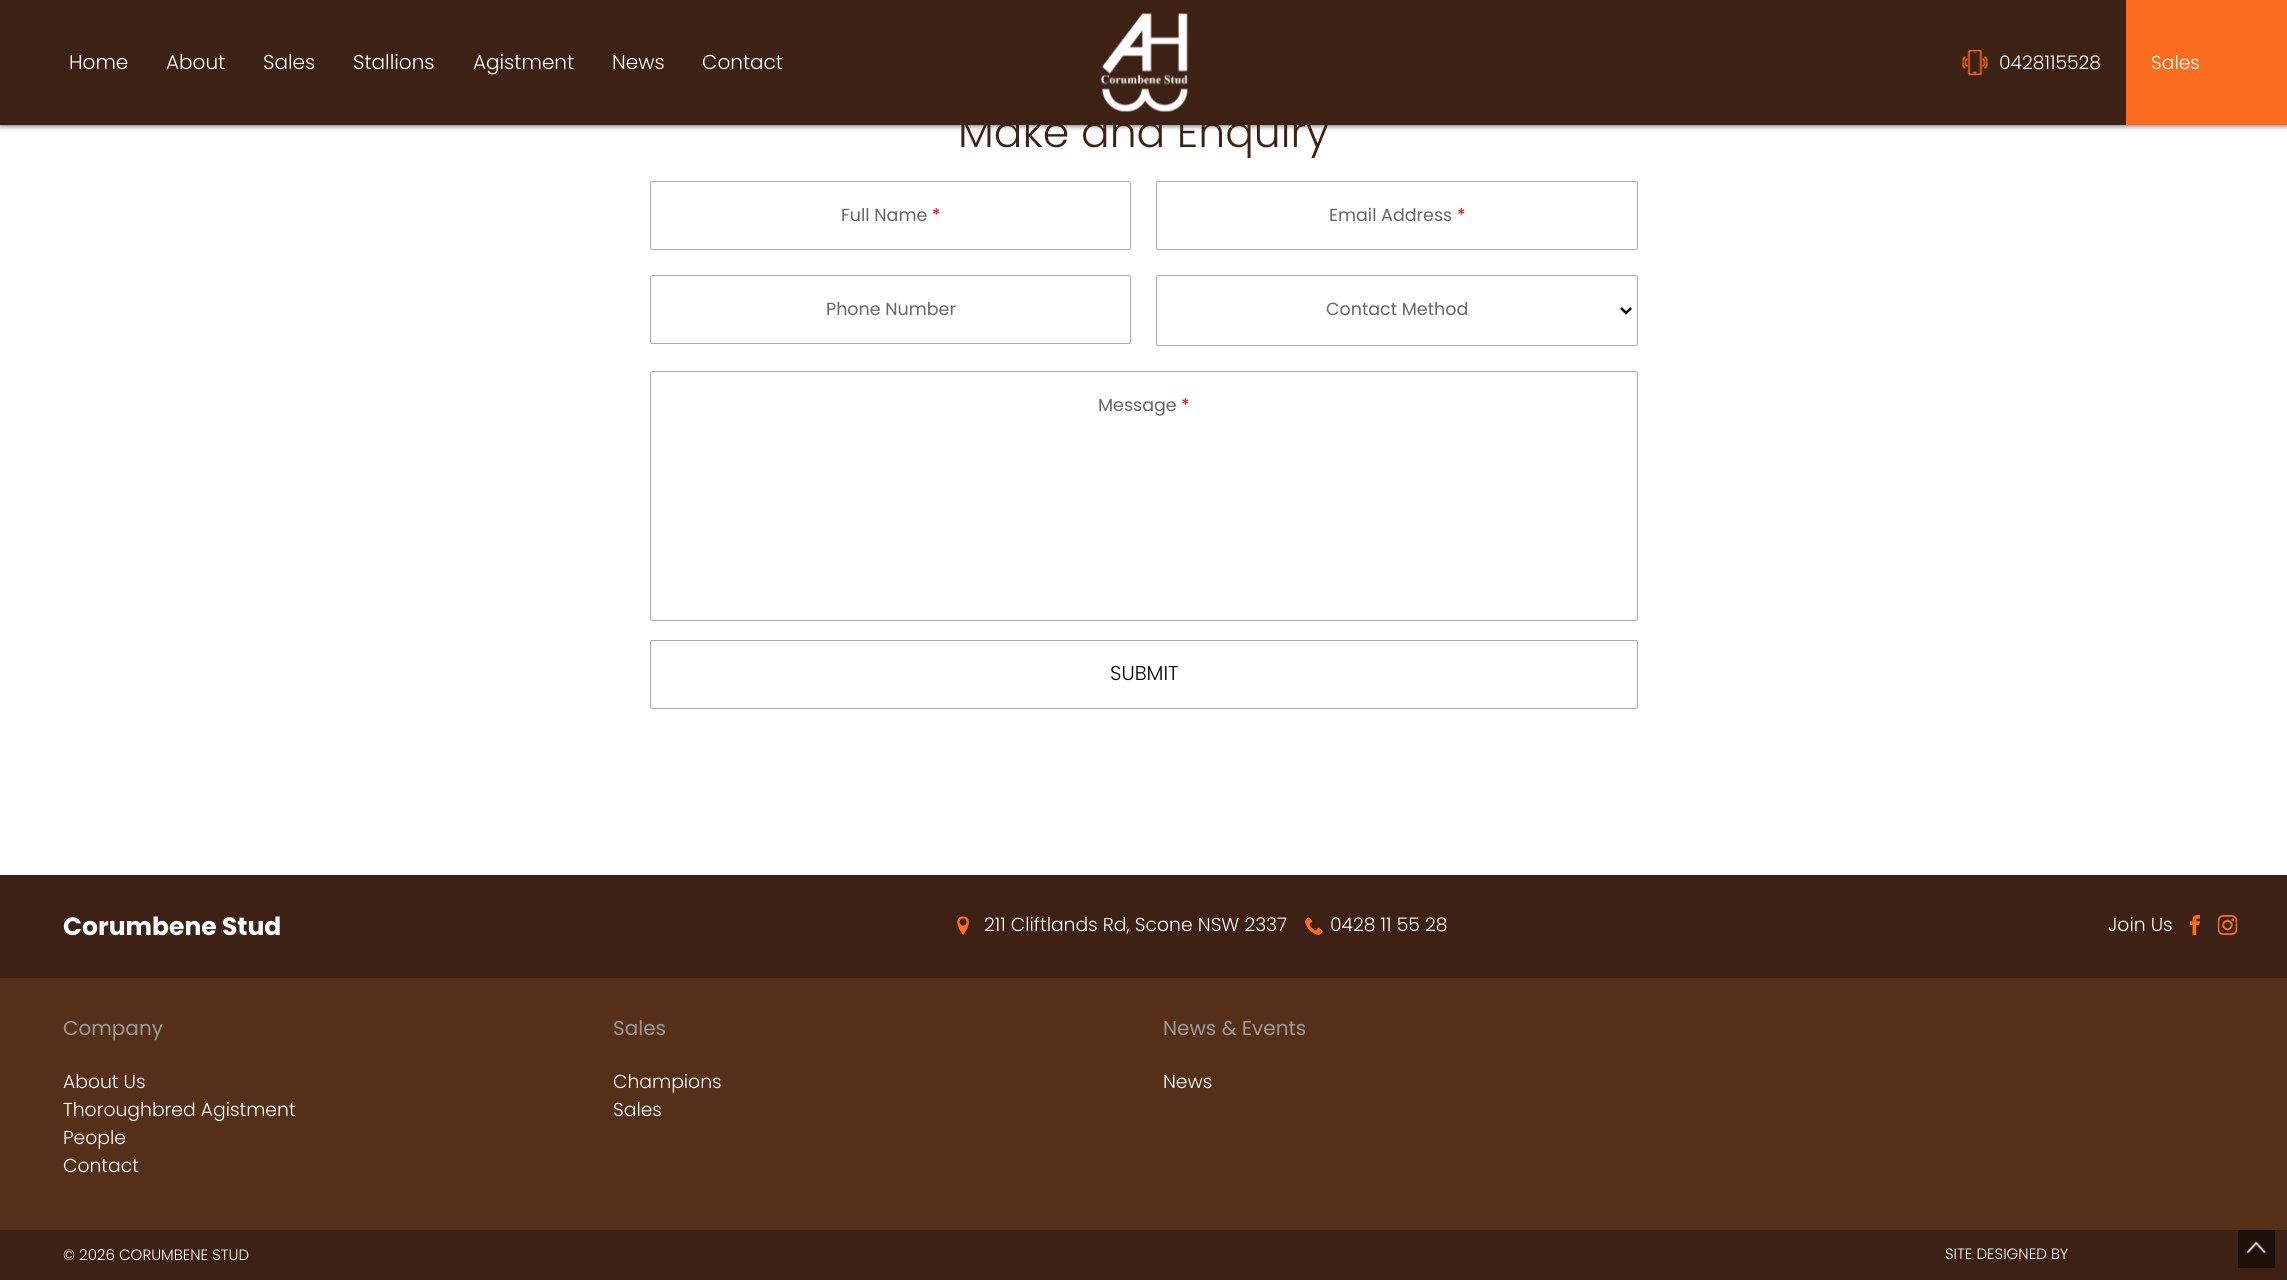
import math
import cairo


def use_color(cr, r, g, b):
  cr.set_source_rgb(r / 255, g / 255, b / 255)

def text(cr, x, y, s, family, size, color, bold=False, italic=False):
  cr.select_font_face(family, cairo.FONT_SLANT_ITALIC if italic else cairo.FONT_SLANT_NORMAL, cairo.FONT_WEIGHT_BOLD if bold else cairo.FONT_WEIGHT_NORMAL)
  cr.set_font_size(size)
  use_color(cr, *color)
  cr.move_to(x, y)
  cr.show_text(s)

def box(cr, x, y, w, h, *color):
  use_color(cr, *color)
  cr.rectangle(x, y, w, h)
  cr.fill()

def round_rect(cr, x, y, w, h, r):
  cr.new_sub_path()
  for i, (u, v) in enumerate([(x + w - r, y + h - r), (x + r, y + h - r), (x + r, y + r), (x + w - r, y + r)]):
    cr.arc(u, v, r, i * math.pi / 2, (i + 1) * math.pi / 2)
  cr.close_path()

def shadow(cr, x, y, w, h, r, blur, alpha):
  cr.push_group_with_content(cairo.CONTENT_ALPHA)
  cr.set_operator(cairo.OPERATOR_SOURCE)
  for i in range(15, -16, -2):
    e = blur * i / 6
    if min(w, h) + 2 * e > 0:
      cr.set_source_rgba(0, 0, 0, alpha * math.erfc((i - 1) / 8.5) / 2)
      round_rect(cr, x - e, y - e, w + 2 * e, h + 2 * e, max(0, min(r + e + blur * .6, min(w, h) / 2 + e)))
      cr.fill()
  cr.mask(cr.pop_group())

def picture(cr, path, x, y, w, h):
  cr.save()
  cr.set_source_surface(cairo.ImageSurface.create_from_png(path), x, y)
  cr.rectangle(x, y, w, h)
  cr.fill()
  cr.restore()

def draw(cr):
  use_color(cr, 255, 255, 255)
  cr.paint()
  use_color(cr, 0, 0, 0)
  shadow(cr, 0, 0, 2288, 125, 0, 3, 0.75)
  box(cr, 0, 0, 2126, 125, 61, 33, 20)
  picture(cr, "img_01.png", 1101, 13, 87, 99)
  picture(cr, "img_02.png", 1962, 50, 26, 25)
  box(cr, 2126, 0, 161, 125, 252, 108, 31)
  round_rect(cr, 650.5, 181.5, 480, 68, 2)
  use_color(cr, 170, 170, 170)
  cr.set_line_width(1)
  cr.stroke()
  round_rect(cr, 1156.5, 181.5, 481, 68, 2)
  cr.stroke()
  round_rect(cr, 650.5, 275.5, 480, 68, 2)
  cr.stroke()
  round_rect(cr, 1156.5, 275.5, 481, 70, 2)
  cr.stroke()
  cr.new_path()
  cr.move_to(1621, 308)
  cr.line_to(1626, 313)
  cr.line_to(1631, 308)
  use_color(cr, 0, 0, 0)
  cr.set_line_width(2.5)
  cr.stroke()
  round_rect(cr, 650.5, 371.5, 987, 249, 2)
  use_color(cr, 170, 170, 170)
  cr.set_line_width(1)
  cr.stroke()
  round_rect(cr, 650.5, 640.5, 987, 68, 2)
  cr.stroke()
  box(cr, 0, 875, 2287, 103, 61, 33, 20)
  picture(cr, "img_03.png", 957, 916, 12, 19)
  picture(cr, "img_04.png", 1305, 917, 18, 18)
  picture(cr, "img_05.png", 2190, 915, 10, 20)
  picture(cr, "img_06.png", 2217, 915, 21, 20)
  box(cr, 0, 978, 2287, 252, 85, 47, 24)
  box(cr, 0, 1230, 2287, 50, 61, 33, 20)
  box(cr, 2238, 1230, 37, 38, 31, 17, 10)
  picture(cr, "img_07.png", 2246, 1241, 20, 13)
  text(cr, 69, 69, "Home", "Poppins Light", 20, (255, 255, 255))
  text(cr, 166, 69, "About", "Poppins Light", 20, (255, 255, 255))
  text(cr, 263, 69, "Sales", "Poppins Light", 20, (255, 255, 255))
  text(cr, 353, 69, "Stallions", "Poppins Light", 20, (255, 255, 255))
  text(cr, 473, 69, "Agistment", "Poppins Light", 20, (255, 255, 255))
  text(cr, 612, 69, "News", "Poppins Light", 20, (255, 255, 255))
  text(cr, 702, 69, "Contact", "Poppins Light", 20, (255, 255, 255))
  text(cr, 1999, 69, "0428115528", "Poppins Light", 18.75, (255, 255, 255))
  text(cr, 2151, 69, "Sales", "Poppins Light", 18.75, (255, 255, 255))
  text(cr, 958, 147, "Make and Enquiry", "Poppins Light", 42.5, (61, 33, 20))
  text(cr, 841, 221, "Full Name", "Poppins", 17.5, (102, 102, 102))
  text(cr, 932, 221, "*", "Poppins", 17.5, (232, 0, 0))
  text(cr, 1329, 221, "Email Address", "Poppins", 17.5, (102, 102, 102))
  text(cr, 1457, 221, "*", "Poppins", 17.5, (232, 0, 0))
  text(cr, 826, 315, "Phone Number", "Poppins", 17.5, (102, 102, 102))
  text(cr, 1326, 315, "Contact Method", "Poppins", 17.5, (102, 102, 102))
  text(cr, 1098, 411, "Message", "Poppins", 17.5, (102, 102, 102))
  text(cr, 1181, 411, "*", "Poppins", 17.5, (232, 0, 0))
  text(cr, 1110, 680, "SUBMIT", "Poppins Light", 20, (0, 0, 0))
  text(cr, 63, 935, "Corumbene Stud", "Poppins", 25, (255, 255, 255), bold=True)
  text(cr, 984, 931, "211 Cliftlands Rd, Scone NSW 2337", "Poppins Light", 18.75, (255, 255, 255))
  text(cr, 1330, 931, "0428 11 55 28", "Poppins Light", 18.75, (255, 255, 255))
  text(cr, 2108, 931, "Join Us", "Poppins Light", 18.75, (255, 255, 255))
  text(cr, 63, 1035, "Company", "Poppins", 20, (154, 154, 154))
  text(cr, 63, 1088, "About Us", "Poppins Light", 18.75, (255, 255, 255))
  text(cr, 63, 1116, "Thoroughbred Agistment", "Poppins Light", 18.75, (255, 255, 255))
  text(cr, 63, 1144, "People", "Poppins Light", 18.75, (255, 255, 255))
  text(cr, 63, 1172, "Contact", "Poppins Light", 18.75, (255, 255, 255))
  text(cr, 613, 1035, "Sales", "Poppins", 20, (154, 154, 154))
  text(cr, 613, 1088, "Champions", "Poppins Light", 18.75, (255, 255, 255))
  text(cr, 613, 1116, "Sales", "Poppins Light", 18.75, (255, 255, 255))
  text(cr, 1163, 1035, "News & Events", "Poppins", 20, (154, 154, 154))
  text(cr, 1163, 1088, "News", "Poppins Light", 18.75, (255, 255, 255))
  text(cr, 63, 1260, "© 2026 CORUMBENE STUD", "Poppins Light", 15, (255, 255, 255))
  text(cr, 1945, 1259, "SITE DESIGNED BY", "Poppins Light", 15, (255, 255, 255))


surface = cairo.ImageSurface(cairo.FORMAT_RGB24, 2287, 1280)
cr = cairo.Context(surface)
options = cairo.FontOptions()
options.set_hint_metrics(cairo.HINT_METRICS_OFF)
options.set_hint_style(cairo.HINT_STYLE_NONE)
cr.set_font_options(options)
cr.set_miter_limit(4)
draw(cr)
surface.write_to_png("out.png")
